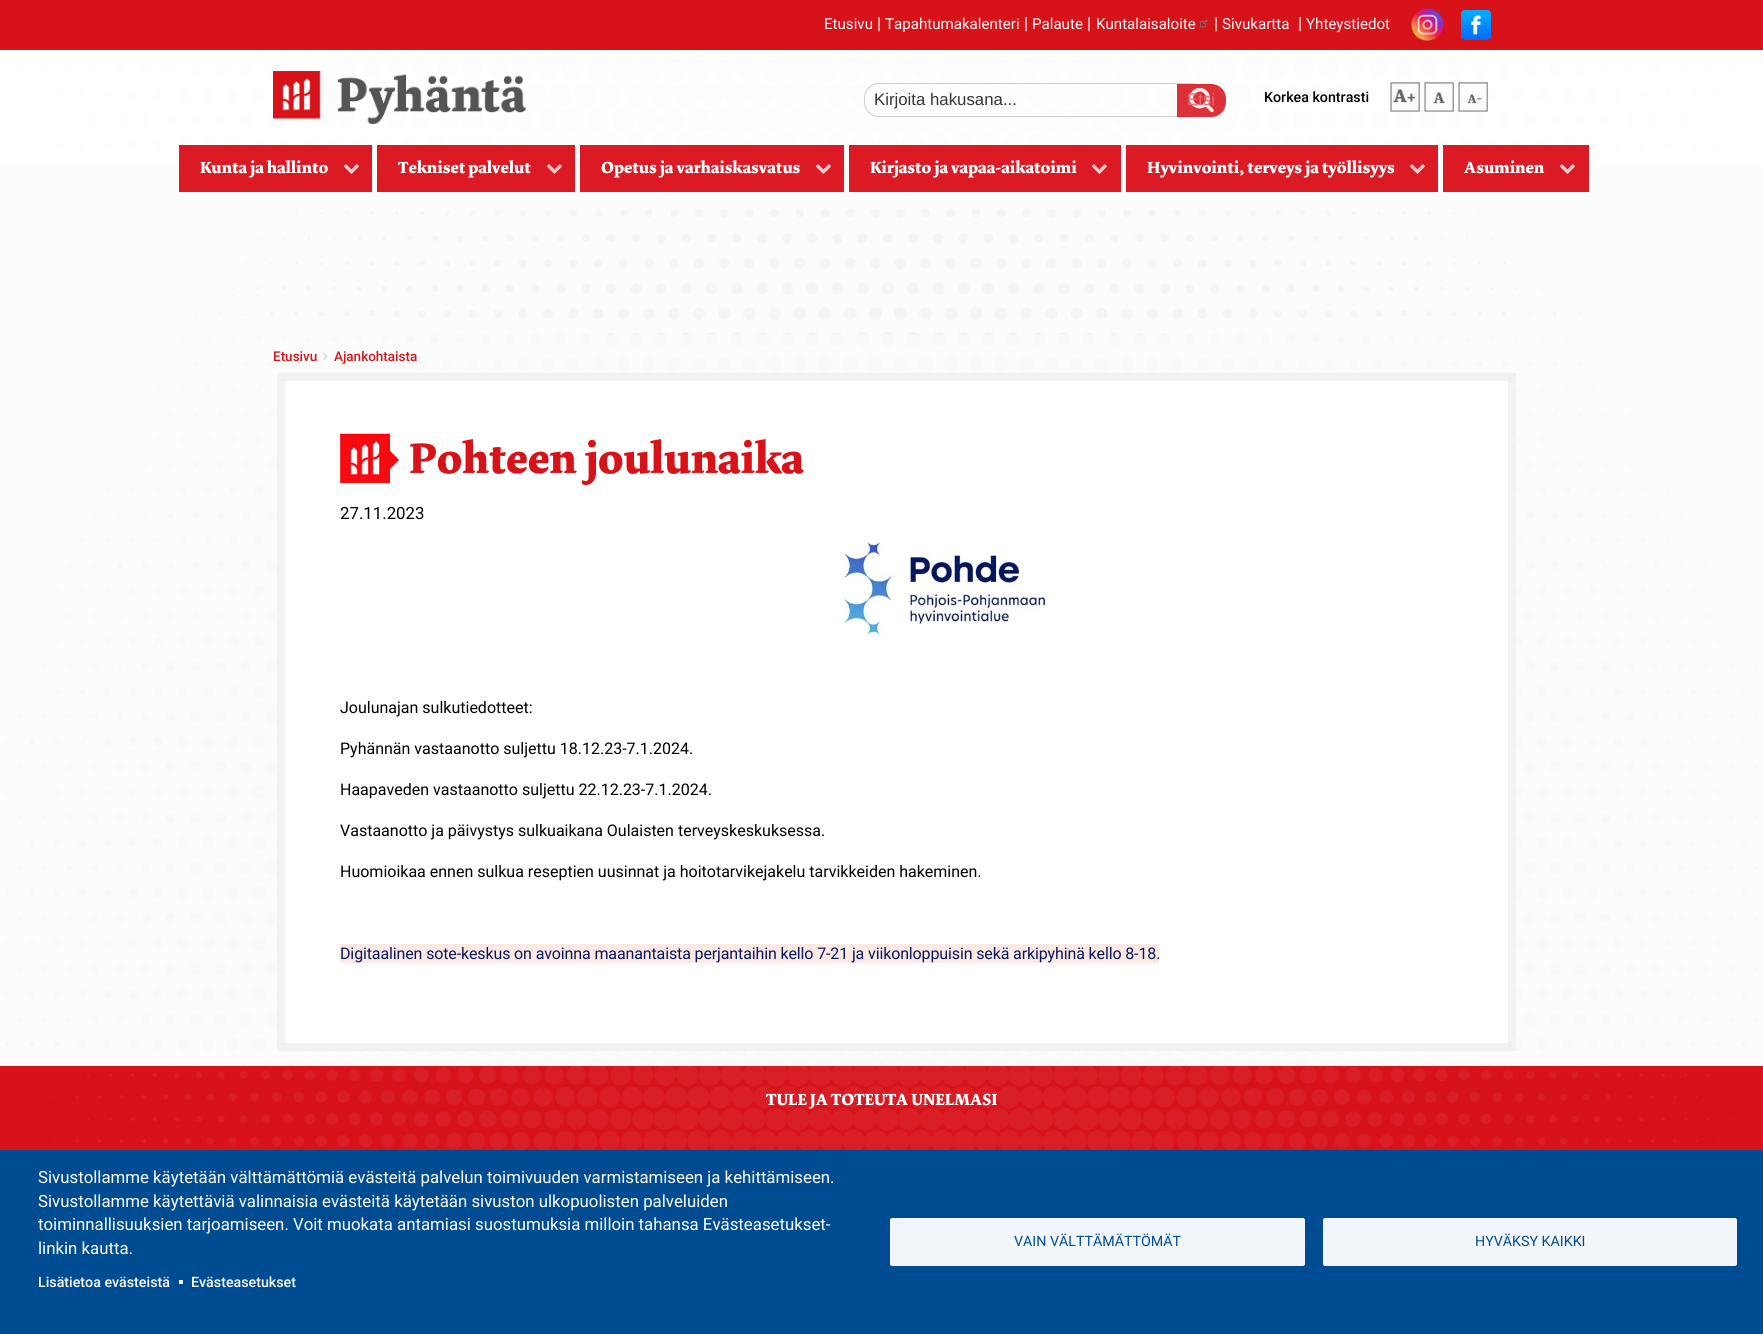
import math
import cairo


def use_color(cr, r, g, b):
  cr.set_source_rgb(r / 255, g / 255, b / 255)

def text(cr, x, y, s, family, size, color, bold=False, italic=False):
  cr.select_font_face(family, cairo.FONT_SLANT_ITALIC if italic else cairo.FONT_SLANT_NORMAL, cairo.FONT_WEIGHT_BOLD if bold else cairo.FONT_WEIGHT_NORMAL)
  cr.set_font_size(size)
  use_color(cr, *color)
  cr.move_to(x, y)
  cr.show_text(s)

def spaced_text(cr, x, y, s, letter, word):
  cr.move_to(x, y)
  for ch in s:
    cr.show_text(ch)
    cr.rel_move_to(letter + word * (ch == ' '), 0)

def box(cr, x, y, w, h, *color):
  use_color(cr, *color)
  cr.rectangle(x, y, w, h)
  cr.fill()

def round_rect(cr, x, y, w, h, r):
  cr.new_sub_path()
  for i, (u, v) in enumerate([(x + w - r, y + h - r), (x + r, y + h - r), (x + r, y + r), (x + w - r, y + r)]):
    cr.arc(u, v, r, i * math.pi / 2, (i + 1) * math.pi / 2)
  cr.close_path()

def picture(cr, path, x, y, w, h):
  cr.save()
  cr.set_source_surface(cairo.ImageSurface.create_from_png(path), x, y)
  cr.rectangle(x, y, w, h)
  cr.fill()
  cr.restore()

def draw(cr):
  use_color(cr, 252, 252, 252)
  cr.paint()
  picture(cr, "img_01.png", 5, 165, 1753, 901)
  box(cr, 0, 0, 1763, 50, 216, 18, 25)
  picture(cr, "img_02.png", 1199, 19, 9, 9)
  picture(cr, "img_03.png", 1411, 8, 33, 33)
  picture(cr, "img_04.png", 1461, 10, 30, 30)
  box(cr, 0, 50, 1763, 115, 255, 255, 255)
  picture(cr, "img_05.png", 4, 50, 1755, 115)
  cr.set_source_rgba(1, 1, 1, 0.8)
  cr.rectangle(4, 50, 1755, 115)
  cr.fill()
  picture(cr, "img_06.png", 273, 71, 253, 53)
  round_rect(cr, 864.5, 83.5, 339, 33, 14.5)
  use_color(cr, 204, 204, 204)
  cr.set_line_width(1)
  cr.stroke()
  cr.set_source_rgba(0.859, 0.102, 0.137, 0.9)
  cr.new_path()
  cr.move_to(1177, 84)
  cr.line_to(1211, 84)
  cr.curve_to(1219.5, 84, 1226, 90.5, 1226, 99)
  cr.line_to(1226, 102)
  cr.curve_to(1226, 110.5, 1219.5, 117, 1211, 117)
  cr.line_to(1177, 117)
  cr.close_path()
  cr.fill()
  picture(cr, "img_07.png", 1189, 87, 25, 26)
  picture(cr, "img_08.png", 1390, 82, 30, 30)
  picture(cr, "img_09.png", 1424, 82, 30, 30)
  picture(cr, "img_10.png", 1458, 82, 30, 30)
  box(cr, 179, 145, 193, 47, 219, 26, 35)
  picture(cr, "img_11.png", 343, 164, 16, 10)
  box(cr, 377, 145, 198, 47, 219, 26, 35)
  picture(cr, "img_11.png", 546, 164, 16, 10)
  box(cr, 580, 145, 264, 47, 219, 26, 35)
  picture(cr, "img_11.png", 815, 164, 16, 10)
  box(cr, 849, 145, 272, 47, 219, 26, 35)
  picture(cr, "img_11.png", 1091, 164, 16, 10)
  box(cr, 1126, 145, 312, 47, 219, 26, 35)
  picture(cr, "img_11.png", 1409, 164, 16, 10)
  box(cr, 1443, 145, 146, 47, 219, 26, 35)
  picture(cr, "img_11.png", 1559, 164, 16, 10)
  cr.set_source_rgba(0.988, 0.988, 0.988, 0.6)
  cr.rectangle(145, 335, 1486, 37)
  cr.fill()
  picture(cr, "img_12.png", 323, 353, 5, 8)
  cr.rectangle(5, 381, 1753, 685)
  cr.fill()
  use_color(cr, 255, 255, 255)
  cr.rectangle(281, 377, 1231, 670)
  cr.fill_preserve()
  use_color(cr, 242, 242, 242)
  cr.set_line_width(8)
  cr.stroke()
  picture(cr, "img_13.png", 340, 433, 59, 50)
  picture(cr, "img_14.png", 844, 542, 202, 93)
  box(cr, 340, 944, 819, 19, 251, 233, 227)
  box(cr, 0, 1066, 1763, 84, 215, 18, 25)
  cr.set_source_rgba(0.843, 0.071, 0.098, 0.05)
  cr.rectangle(766, 1093, 231, 16)
  cr.fill()
  box(cr, 0, 1150, 1763, 184, 0, 76, 147)
  box(cr, 179, 1280, 4, 4, 255, 255, 255)
  use_color(cr, 242, 246, 250)
  round_rect(cr, 891, 1219, 413, 46, 1)
  cr.fill_preserve()
  cr.set_line_width(2)
  cr.stroke()
  round_rect(cr, 1324, 1219, 412, 46, 1)
  cr.fill_preserve()
  cr.stroke()
  text(cr, 824, 29, "Etusivu", "Roboto", 15.1, (255, 255, 255))
  text(cr, 877, 29, "|", "Roboto", 16.8, (255, 255, 255))
  text(cr, 885, 29, "Tapahtumakalenteri", "Roboto", 15.1, (255, 255, 255))
  text(cr, 1024, 29, "|", "Roboto", 16.8, (255, 255, 255))
  text(cr, 1032, 29, "Palaute", "Roboto", 15.1, (255, 255, 255))
  text(cr, 1087, 29, "|", "Roboto", 16.8, (255, 255, 255))
  text(cr, 1096, 29, "Kuntalaisaloite", "Roboto", 15.1, (255, 255, 255))
  text(cr, 1214, 29, "|", "Roboto", 16.8, (255, 255, 255))
  text(cr, 1222, 29, "Sivukartta", "Roboto", 15.1, (255, 255, 255))
  text(cr, 1298, 29, "|", "Roboto", 16.8, (255, 255, 255))
  text(cr, 1306, 29, "Yhteystiedot", "Roboto", 15.1, (255, 255, 255))
  text(cr, 874, 105, "Kirjoita hakusana...", "Liberation Sans", 16.8, (54, 54, 54))
  text(cr, 1187, 105, "Etsi", "Liberation Sans", 16.8, (232, 109, 115))
  text(cr, 1264, 102, "Korkea kontrasti", "Roboto Medium", 14.25, (0, 0, 0))
  text(cr, 200, 173, "Kunta ja hallinto", "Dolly", 16.8, (255, 255, 255), bold=True)
  text(cr, 398, 173, "Tekniset palvelut", "Dolly", 16.8, (255, 255, 255), bold=True)
  text(cr, 601, 173, "Opetus ja varhaiskasvatus", "Dolly", 16.8, (255, 255, 255), bold=True)
  text(cr, 870, 173, "Kirjasto ja vapaa-aikatoimi", "Dolly", 16.8, (255, 255, 255), bold=True)
  text(cr, 1147, 173, "Hyvinvointi, terveys ja työllisyys", "Dolly", 16.8, (255, 255, 255), bold=True)
  text(cr, 1464, 173, "Asuminen", "Dolly", 16.8, (255, 255, 255), bold=True)
  text(cr, 273, 361, "Etusivu", "Roboto Medium", 13.5, (216, 18, 25))
  text(cr, 334, 361, "Ajankohtaista", "Roboto Medium", 13.5, (216, 18, 25))
  text(cr, 409, 473, "Pohteen joulunaika", "Dolly", 44, (216, 18, 25), bold=True)
  text(cr, 340, 519, "27.11.2023", "Roboto", 16.8, (0, 0, 0))
  text(cr, 340, 713, "Joulunajan sulkutiedotteet:", "Roboto", 16, (0, 0, 0))
  text(cr, 340, 754, "Pyhännän vastaanotto suljettu 18.12.23-7.1.2024.", "Roboto", 16, (0, 0, 0))
  text(cr, 340, 795, "Haapaveden vastaanotto suljettu 22.12.23-7.1.2024.", "Roboto", 16, (0, 0, 0))
  text(cr, 340, 836, "Vastaanotto ja päivystys sulkuaikana Oulaisten terveyskeskuksessa.", "Roboto", 16, (0, 0, 0))
  text(cr, 340, 877, "Huomioikaa ennen sulkua reseptien uusinnat ja hoitotarvikejakelu tarvikkeiden hakeminen.", "Roboto", 16, (0, 0, 0))
  use_color(cr, 6, 23, 94)
  spaced_text(cr, 340, 959, "Digitaalinen sote-keskus on avoinna maanantaista perjantaihin kello 7-21 ja viikonloppuisin sekä arkipyhinä kello 8-18.", -0.13, 0)
  text(cr, 766, 1105, "TULE JA TOTEUTA UNELMASI", "Dolly", 16.8, (255, 255, 255), bold=True)
  picture(cr, "img_15.png", 32, 1066, 1721, 84)
  text(cr, 38, 1183, "Sivustollamme käytetään välttämättömiä evästeitä palvelun toimivuuden varmistamiseen ja kehittämiseen.", "Roboto", 16.8, (255, 255, 255))
  text(cr, 38, 1207, "Sivustollamme käytettäviä valinnaisia evästeitä käytetään sivuston ulkopuolisten palveluiden", "Roboto", 16.8, (255, 255, 255))
  text(cr, 38, 1230, "toiminnallisuuksien tarjoamiseen. Voit muokata antamiasi suostumuksia milloin tahansa Evästeasetukset-", "Roboto", 16.8, (255, 255, 255))
  text(cr, 38, 1254, "linkin kautta.", "Roboto", 16.8, (255, 255, 255))
  text(cr, 38, 1287, "Lisätietoa evästeistä", "Roboto Medium", 14.25, (255, 255, 255))
  text(cr, 191, 1287, "Evästeasetukset", "Roboto Medium", 14.25, (255, 255, 255))
  text(cr, 1014, 1246, "VAIN VÄLTTÄMÄTTÖMÄT", "Roboto", 14.25, (0, 76, 147))
  text(cr, 1475, 1246, "HYVÄKSY KAIKKI", "Roboto", 14.25, (0, 76, 147))


surface = cairo.ImageSurface(cairo.FORMAT_RGB24, 1763, 1334)
cr = cairo.Context(surface)
options = cairo.FontOptions()
options.set_hint_metrics(cairo.HINT_METRICS_OFF)
options.set_hint_style(cairo.HINT_STYLE_NONE)
cr.set_font_options(options)
cr.set_miter_limit(4)
draw(cr)
surface.write_to_png("out.png")
